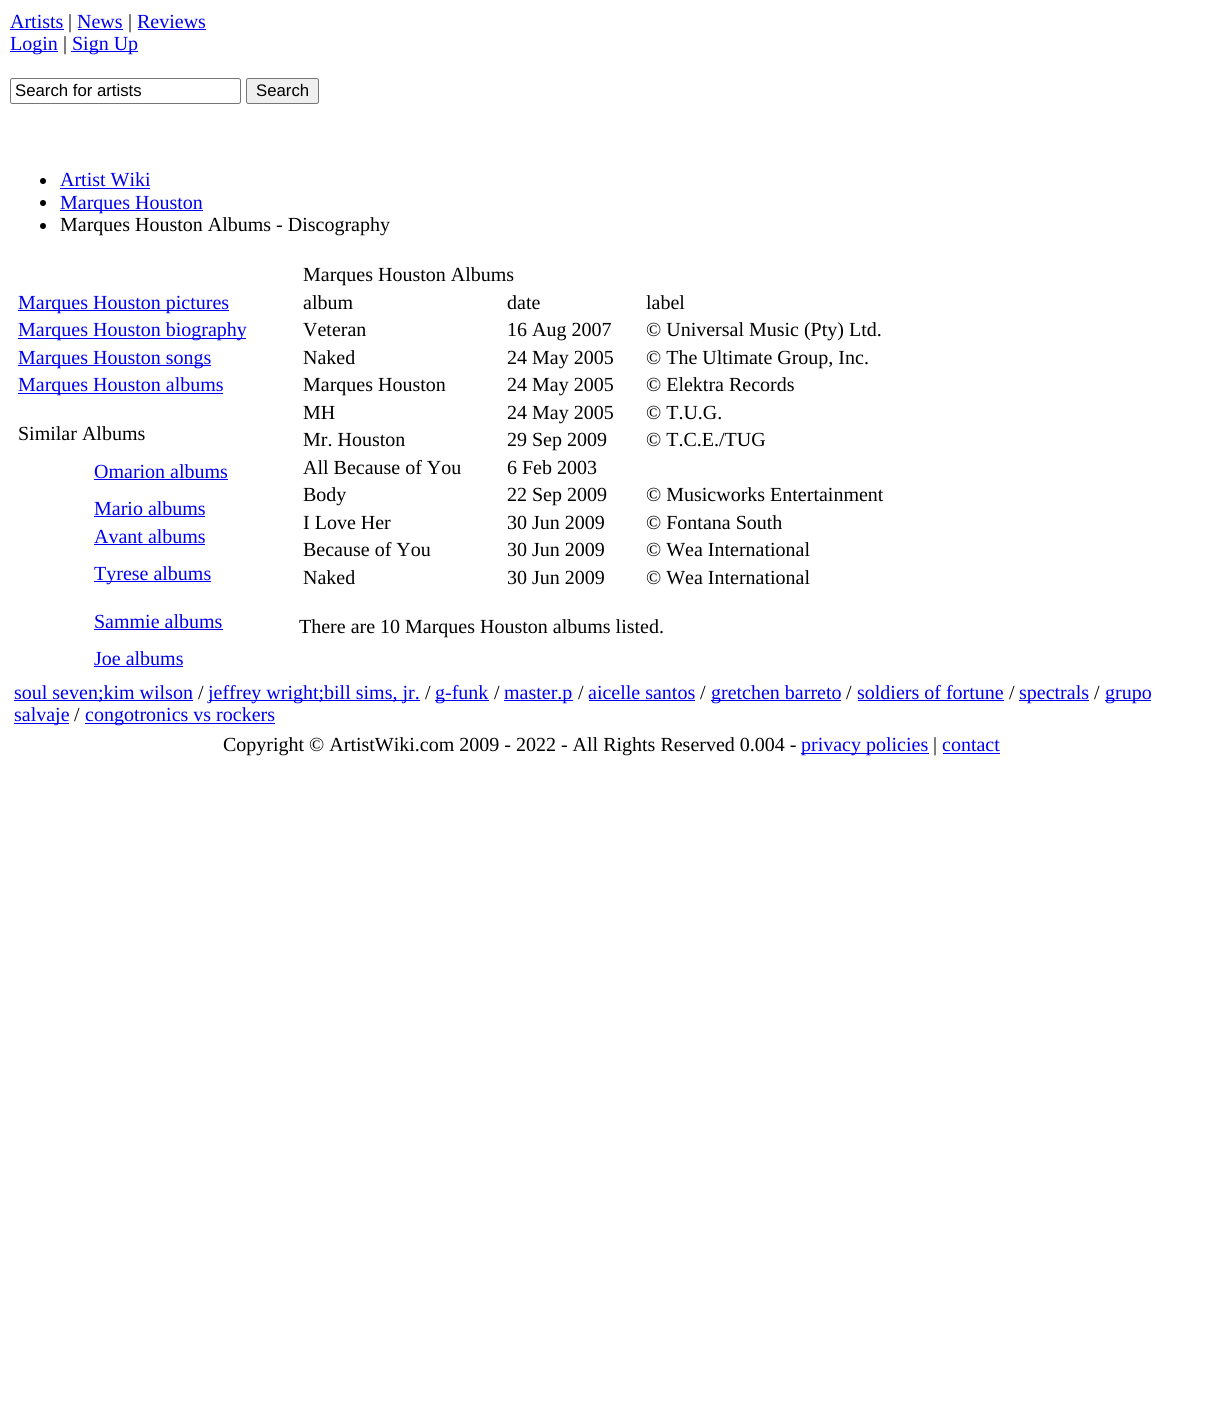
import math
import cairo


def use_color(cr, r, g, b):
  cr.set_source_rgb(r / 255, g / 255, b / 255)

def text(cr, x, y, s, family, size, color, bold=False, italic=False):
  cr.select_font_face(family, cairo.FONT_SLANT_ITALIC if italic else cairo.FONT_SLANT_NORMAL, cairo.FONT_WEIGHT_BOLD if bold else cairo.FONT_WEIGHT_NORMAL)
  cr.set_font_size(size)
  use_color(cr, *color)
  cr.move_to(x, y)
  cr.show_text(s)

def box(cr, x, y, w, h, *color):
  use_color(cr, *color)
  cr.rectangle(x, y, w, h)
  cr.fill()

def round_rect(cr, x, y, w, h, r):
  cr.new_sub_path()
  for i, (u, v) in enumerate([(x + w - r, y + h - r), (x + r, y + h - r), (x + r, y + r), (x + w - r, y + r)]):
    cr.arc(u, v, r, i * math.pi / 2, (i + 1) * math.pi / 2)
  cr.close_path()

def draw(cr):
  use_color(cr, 255, 255, 255)
  cr.paint()
  box(cr, 10, 29, 54, 1, 0, 0, 238)
  box(cr, 78, 29, 45, 1, 0, 0, 238)
  box(cr, 138, 29, 68, 1, 0, 0, 238)
  box(cr, 10, 51, 48, 1, 0, 0, 238)
  box(cr, 71, 51, 67, 1, 0, 0, 238)
  round_rect(cr, 10.5, 78.5, 230, 25, 2)
  use_color(cr, 118, 118, 118)
  cr.set_line_width(1)
  cr.stroke()
  use_color(cr, 239, 239, 239)
  round_rect(cr, 246.5, 78.5, 72, 25, 2)
  cr.fill_preserve()
  use_color(cr, 118, 118, 118)
  cr.stroke()
  use_color(cr, 0, 0, 0)
  cr.arc(43, 181, 3, 0, 2 * math.pi)
  cr.fill()
  box(cr, 60, 188, 90, 1, 0, 0, 238)
  use_color(cr, 0, 0, 0)
  cr.arc(43, 203, 3, 0, 2 * math.pi)
  cr.fill()
  box(cr, 60, 210, 143, 1, 0, 0, 238)
  use_color(cr, 0, 0, 0)
  cr.arc(43, 226, 3, 0, 2 * math.pi)
  cr.fill()
  box(cr, 18, 310, 211, 1, 0, 0, 238)
  box(cr, 18, 338, 228, 1, 0, 0, 238)
  box(cr, 18, 365, 193, 1, 0, 0, 238)
  box(cr, 18, 393, 205, 1, 0, 0, 238)
  box(cr, 94, 479, 134, 1, 0, 0, 238)
  box(cr, 94, 516, 111, 1, 0, 0, 238)
  box(cr, 94, 544, 111, 1, 0, 0, 238)
  box(cr, 94, 581, 117, 1, 0, 0, 238)
  box(cr, 94, 629, 129, 1, 0, 0, 238)
  box(cr, 94, 666, 89, 1, 0, 0, 238)
  box(cr, 14, 700, 179, 1, 0, 0, 238)
  box(cr, 209, 700, 211, 1, 0, 0, 238)
  box(cr, 435, 700, 54, 1, 0, 0, 238)
  box(cr, 504, 700, 69, 1, 0, 0, 238)
  box(cr, 589, 700, 106, 1, 0, 0, 238)
  box(cr, 711, 700, 130, 1, 0, 0, 238)
  box(cr, 858, 700, 146, 1, 0, 0, 238)
  box(cr, 1019, 700, 70, 1, 0, 0, 238)
  box(cr, 1105, 700, 46, 1, 0, 0, 238)
  box(cr, 14, 723, 55, 1, 0, 0, 238)
  box(cr, 85, 723, 190, 1, 0, 0, 238)
  box(cr, 801, 753, 128, 1, 0, 0, 238)
  box(cr, 943, 753, 57, 1, 0, 0, 238)
  text(cr, 10, 28, "Artists", "Liberation Serif", 20, (0, 0, 238))
  text(cr, 68, 28, "|", "Liberation Serif", 20, (0, 0, 0))
  text(cr, 77, 28, "News", "Liberation Serif", 20, (0, 0, 238))
  text(cr, 128, 28, "|", "Liberation Serif", 20, (0, 0, 0))
  text(cr, 137, 28, "Reviews", "Liberation Serif", 20, (0, 0, 238))
  text(cr, 10, 50, "Login", "Liberation Serif", 20, (0, 0, 238))
  text(cr, 63, 50, "|", "Liberation Serif", 20, (0, 0, 0))
  text(cr, 72, 50, "Sign Up", "Liberation Serif", 20, (0, 0, 238))
  text(cr, 15, 96, "Search for artists", "Liberation Sans", 16.75, (0, 0, 0))
  text(cr, 256, 96, "Search", "Liberation Sans", 16.75, (0, 0, 0))
  text(cr, 60, 186, "Artist Wiki", "Liberation Serif", 20, (0, 0, 238))
  text(cr, 60, 209, "Marques Houston", "Liberation Serif", 20, (0, 0, 238))
  text(cr, 60, 231, "Marques Houston Albums - Discography", "Liberation Serif", 20, (0, 0, 0))
  text(cr, 18, 309, "Marques Houston pictures", "Liberation Serif", 20, (0, 0, 238))
  text(cr, 18, 336, "Marques Houston biography", "Liberation Serif", 20, (0, 0, 238))
  text(cr, 18, 364, "Marques Houston songs", "Liberation Serif", 20, (0, 0, 238))
  text(cr, 18, 391, "Marques Houston albums", "Liberation Serif", 20, (0, 0, 238))
  text(cr, 18, 440, "Similar Albums", "Liberation Serif", 20, (0, 0, 0))
  text(cr, 94, 478, "Omarion albums", "Liberation Serif", 20, (0, 0, 238))
  text(cr, 94, 515, "Mario albums", "Liberation Serif", 20, (0, 0, 238))
  text(cr, 94, 543, "Avant albums", "Liberation Serif", 20, (0, 0, 238))
  text(cr, 94, 580, "Tyrese albums", "Liberation Serif", 20, (0, 0, 238))
  text(cr, 94, 628, "Sammie albums", "Liberation Serif", 20, (0, 0, 238))
  text(cr, 94, 665, "Joe albums", "Liberation Serif", 20, (0, 0, 238))
  text(cr, 303, 281, "Marques Houston Albums", "Liberation Serif", 20, (0, 0, 0))
  text(cr, 303, 309, "album", "Liberation Serif", 20, (0, 0, 0))
  text(cr, 507, 309, "date", "Liberation Serif", 20, (0, 0, 0))
  text(cr, 646, 309, "label", "Liberation Serif", 20, (0, 0, 0))
  text(cr, 303, 336, "Veteran", "Liberation Serif", 20, (0, 0, 0))
  text(cr, 507, 336, "16 Aug 2007", "Liberation Serif", 20, (0, 0, 0))
  text(cr, 646, 336, "© Universal Music (Pty) Ltd.", "Liberation Serif", 20, (0, 0, 0))
  text(cr, 303, 364, "Naked", "Liberation Serif", 20, (0, 0, 0))
  text(cr, 507, 364, "24 May 2005", "Liberation Serif", 20, (0, 0, 0))
  text(cr, 646, 364, "© The Ultimate Group, Inc.", "Liberation Serif", 20, (0, 0, 0))
  text(cr, 303, 391, "Marques Houston", "Liberation Serif", 20, (0, 0, 0))
  text(cr, 507, 391, "24 May 2005", "Liberation Serif", 20, (0, 0, 0))
  text(cr, 646, 391, "© Elektra Records", "Liberation Serif", 20, (0, 0, 0))
  text(cr, 303, 419, "MH", "Liberation Serif", 20, (0, 0, 0))
  text(cr, 507, 419, "24 May 2005", "Liberation Serif", 20, (0, 0, 0))
  text(cr, 646, 419, "© T.U.G.", "Liberation Serif", 20, (0, 0, 0))
  text(cr, 303, 446, "Mr. Houston", "Liberation Serif", 20, (0, 0, 0))
  text(cr, 507, 446, "29 Sep 2009", "Liberation Serif", 20, (0, 0, 0))
  text(cr, 646, 446, "© T.C.E./TUG", "Liberation Serif", 20, (0, 0, 0))
  text(cr, 303, 474, "All Because of You", "Liberation Serif", 20, (0, 0, 0))
  text(cr, 507, 474, "6 Feb 2003", "Liberation Serif", 20, (0, 0, 0))
  text(cr, 303, 501, "Body", "Liberation Serif", 20, (0, 0, 0))
  text(cr, 507, 501, "22 Sep 2009", "Liberation Serif", 20, (0, 0, 0))
  text(cr, 646, 501, "© Musicworks Entertainment", "Liberation Serif", 20, (0, 0, 0))
  text(cr, 303, 529, "I Love Her", "Liberation Serif", 20, (0, 0, 0))
  text(cr, 507, 529, "30 Jun 2009", "Liberation Serif", 20, (0, 0, 0))
  text(cr, 646, 529, "© Fontana South", "Liberation Serif", 20, (0, 0, 0))
  text(cr, 303, 556, "Because of You", "Liberation Serif", 20, (0, 0, 0))
  text(cr, 507, 556, "30 Jun 2009", "Liberation Serif", 20, (0, 0, 0))
  text(cr, 646, 556, "© Wea International", "Liberation Serif", 20, (0, 0, 0))
  text(cr, 303, 584, "Naked", "Liberation Serif", 20, (0, 0, 0))
  text(cr, 507, 584, "30 Jun 2009", "Liberation Serif", 20, (0, 0, 0))
  text(cr, 646, 584, "© Wea International", "Liberation Serif", 20, (0, 0, 0))
  text(cr, 299, 633, "There are 10 Marques Houston albums listed.", "Liberation Serif", 20, (0, 0, 0))
  text(cr, 14, 699, "soul seven;kim wilson", "Liberation Serif", 20, (0, 0, 238))
  text(cr, 198, 699, "/", "Liberation Serif", 20, (0, 0, 0))
  text(cr, 208, 699, "jeffrey wright;bill sims, jr.", "Liberation Serif", 20, (0, 0, 238))
  text(cr, 425, 699, "/", "Liberation Serif", 20, (0, 0, 0))
  text(cr, 435, 699, "g-funk", "Liberation Serif", 20, (0, 0, 238))
  text(cr, 494, 699, "/", "Liberation Serif", 20, (0, 0, 0))
  text(cr, 504, 699, "master.p", "Liberation Serif", 20, (0, 0, 238))
  text(cr, 578, 699, "/", "Liberation Serif", 20, (0, 0, 0))
  text(cr, 588, 699, "aicelle santos", "Liberation Serif", 20, (0, 0, 238))
  text(cr, 700, 699, "/", "Liberation Serif", 20, (0, 0, 0))
  text(cr, 711, 699, "gretchen barreto", "Liberation Serif", 20, (0, 0, 238))
  text(cr, 846, 699, "/", "Liberation Serif", 20, (0, 0, 0))
  text(cr, 857, 699, "soldiers of fortune", "Liberation Serif", 20, (0, 0, 238))
  text(cr, 1009, 699, "/", "Liberation Serif", 20, (0, 0, 0))
  text(cr, 1019, 699, "spectrals", "Liberation Serif", 20, (0, 0, 238))
  text(cr, 1094, 699, "/", "Liberation Serif", 20, (0, 0, 0))
  text(cr, 1105, 699, "grupo", "Liberation Serif", 20, (0, 0, 238))
  text(cr, 14, 721, "salvaje", "Liberation Serif", 20, (0, 0, 238))
  text(cr, 74, 721, "/", "Liberation Serif", 20, (0, 0, 0))
  text(cr, 85, 721, "congotronics vs rockers", "Liberation Serif", 20, (0, 0, 238))
  text(cr, 223, 751, "Copyright © ArtistWiki.com 2009 - 2022 - All Rights Reserved 0.004 -", "Liberation Serif", 20, (0, 0, 0))
  text(cr, 801, 751, "privacy policies", "Liberation Serif", 20, (0, 0, 238))
  text(cr, 933, 751, "|", "Liberation Serif", 20, (0, 0, 0))
  text(cr, 942, 751, "contact", "Liberation Serif", 20, (0, 0, 238))


surface = cairo.ImageSurface(cairo.FORMAT_RGB24, 1222, 1410)
cr = cairo.Context(surface)
options = cairo.FontOptions()
options.set_hint_metrics(cairo.HINT_METRICS_OFF)
options.set_hint_style(cairo.HINT_STYLE_NONE)
cr.set_font_options(options)
cr.set_miter_limit(4)
draw(cr)
surface.write_to_png("out.png")
